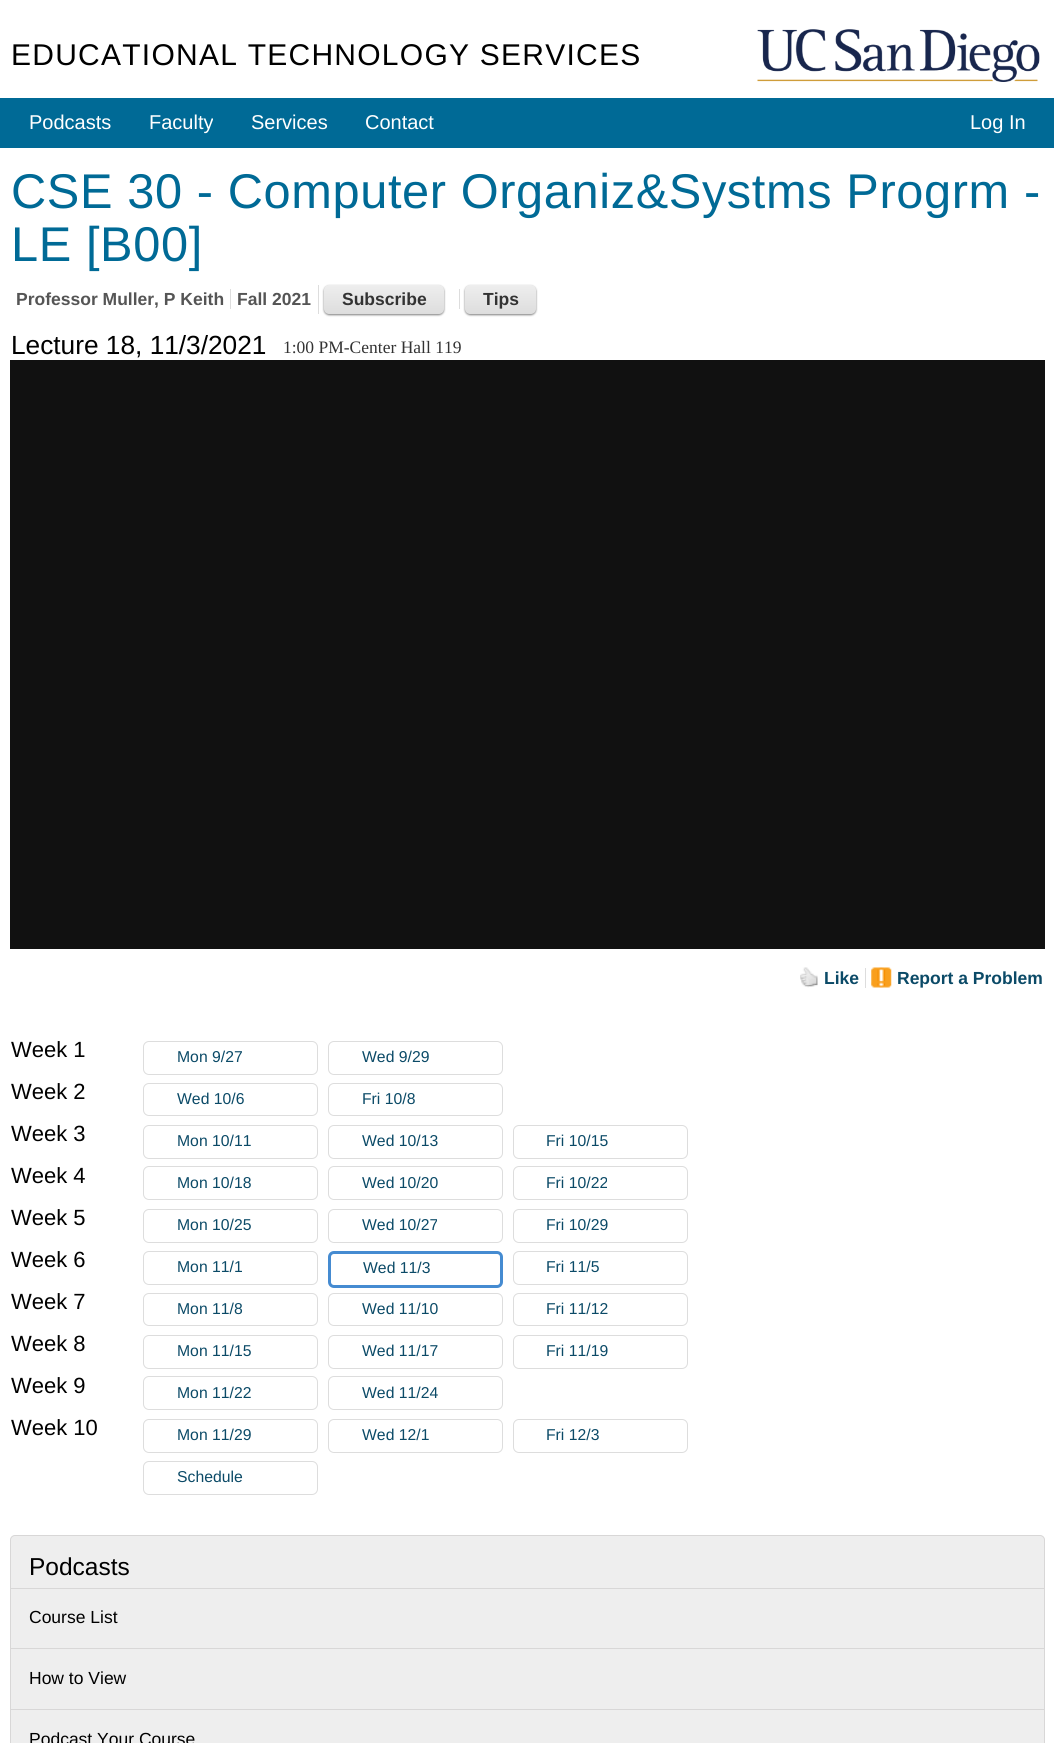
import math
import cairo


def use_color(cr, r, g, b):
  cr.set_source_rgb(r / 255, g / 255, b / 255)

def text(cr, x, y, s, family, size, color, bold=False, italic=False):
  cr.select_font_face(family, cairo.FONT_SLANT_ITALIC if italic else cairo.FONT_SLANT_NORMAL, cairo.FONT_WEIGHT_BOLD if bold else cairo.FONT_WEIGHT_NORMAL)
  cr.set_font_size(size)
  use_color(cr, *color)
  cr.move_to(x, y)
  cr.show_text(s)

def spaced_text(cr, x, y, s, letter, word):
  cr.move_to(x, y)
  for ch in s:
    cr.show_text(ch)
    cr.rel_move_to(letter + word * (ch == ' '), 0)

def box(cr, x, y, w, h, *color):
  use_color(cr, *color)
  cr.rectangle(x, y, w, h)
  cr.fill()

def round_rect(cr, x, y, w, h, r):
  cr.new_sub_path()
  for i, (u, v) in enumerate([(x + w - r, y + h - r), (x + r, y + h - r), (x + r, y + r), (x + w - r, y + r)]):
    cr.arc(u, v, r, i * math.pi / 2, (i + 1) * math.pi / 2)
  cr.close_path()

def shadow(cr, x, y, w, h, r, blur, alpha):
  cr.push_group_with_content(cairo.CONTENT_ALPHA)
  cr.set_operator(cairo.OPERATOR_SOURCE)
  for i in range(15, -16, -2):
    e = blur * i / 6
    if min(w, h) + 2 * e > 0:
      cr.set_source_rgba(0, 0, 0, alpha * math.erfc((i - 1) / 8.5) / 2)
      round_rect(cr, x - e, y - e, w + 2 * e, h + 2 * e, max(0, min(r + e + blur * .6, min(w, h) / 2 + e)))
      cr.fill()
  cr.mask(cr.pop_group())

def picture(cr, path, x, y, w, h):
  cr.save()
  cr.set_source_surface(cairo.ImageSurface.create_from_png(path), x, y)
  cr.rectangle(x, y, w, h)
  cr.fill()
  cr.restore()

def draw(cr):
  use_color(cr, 255, 255, 255)
  cr.paint()
  picture(cr, "img_01.png", 757, 29, 283, 53)
  box(cr, 0, 98, 1054, 50, 0, 106, 150)
  box(cr, 230, 289, 1, 20, 221, 221, 221)
  box(cr, 318, 285, 1, 29, 221, 221, 221)
  use_color(cr, 0, 0, 0)
  shadow(cr, 324, 286, 120, 29, 5, 1, 0.5)
  gradient = cairo.LinearGradient(324, 285, 324, 314)
  gradient.add_color_stop_rgba(0, 0.933, 0.933, 0.933, 1)
  gradient.add_color_stop_rgba(1, 0.867, 0.867, 0.867, 1)
  cr.set_source(gradient)
  round_rect(cr, 324, 285, 120, 29, 5)
  cr.fill()
  box(cr, 459, 289, 1, 20, 221, 221, 221)
  use_color(cr, 0, 0, 0)
  shadow(cr, 465, 286, 71, 29, 5, 1, 0.5)
  gradient = cairo.LinearGradient(465, 285, 465, 314)
  gradient.add_color_stop_rgba(0, 0.933, 0.933, 0.933, 1)
  gradient.add_color_stop_rgba(1, 0.867, 0.867, 0.867, 1)
  cr.set_source(gradient)
  round_rect(cr, 465, 285, 71, 29, 5)
  cr.fill()
  box(cr, 10, 360, 1035, 589, 17, 17, 17)
  picture(cr, "img_02.png", 800, 967, 18, 21)
  box(cr, 865, 968, 1, 20, 221, 221, 221)
  picture(cr, "img_03.png", 871, 967, 21, 21)
  round_rect(cr, 143.5, 1041.5, 174, 33, 5.5)
  cr.set_line_width(1)
  cr.stroke()
  round_rect(cr, 328.5, 1041.5, 174, 33, 5.5)
  cr.stroke()
  round_rect(cr, 143.5, 1083.5, 174, 32, 5.5)
  cr.stroke()
  round_rect(cr, 328.5, 1083.5, 174, 32, 5.5)
  cr.stroke()
  round_rect(cr, 143.5, 1125.5, 174, 33, 5.5)
  cr.stroke()
  round_rect(cr, 328.5, 1125.5, 174, 33, 5.5)
  cr.stroke()
  round_rect(cr, 513.5, 1125.5, 174, 33, 5.5)
  cr.stroke()
  round_rect(cr, 143.5, 1166.5, 174, 33, 5.5)
  cr.stroke()
  round_rect(cr, 328.5, 1166.5, 174, 33, 5.5)
  cr.stroke()
  round_rect(cr, 513.5, 1166.5, 174, 33, 5.5)
  cr.stroke()
  round_rect(cr, 143.5, 1209.5, 174, 33, 5.5)
  cr.stroke()
  round_rect(cr, 328.5, 1209.5, 174, 33, 5.5)
  cr.stroke()
  round_rect(cr, 513.5, 1209.5, 174, 33, 5.5)
  cr.stroke()
  round_rect(cr, 143.5, 1251.5, 174, 33, 5.5)
  cr.stroke()
  round_rect(cr, 329.5, 1252.5, 172, 34, 4.5)
  use_color(cr, 69, 139, 209)
  cr.set_line_width(3)
  cr.stroke()
  round_rect(cr, 513.5, 1251.5, 174, 33, 5.5)
  use_color(cr, 221, 221, 221)
  cr.set_line_width(1)
  cr.stroke()
  round_rect(cr, 143.5, 1293.5, 174, 32, 5.5)
  cr.stroke()
  round_rect(cr, 328.5, 1293.5, 174, 32, 5.5)
  cr.stroke()
  round_rect(cr, 513.5, 1293.5, 174, 32, 5.5)
  cr.stroke()
  round_rect(cr, 143.5, 1335.5, 174, 33, 5.5)
  cr.stroke()
  round_rect(cr, 328.5, 1335.5, 174, 33, 5.5)
  cr.stroke()
  round_rect(cr, 513.5, 1335.5, 174, 33, 5.5)
  cr.stroke()
  round_rect(cr, 143.5, 1376.5, 174, 33, 5.5)
  cr.stroke()
  round_rect(cr, 328.5, 1376.5, 174, 33, 5.5)
  cr.stroke()
  round_rect(cr, 143.5, 1419.5, 174, 33, 5.5)
  cr.stroke()
  round_rect(cr, 328.5, 1419.5, 174, 33, 5.5)
  cr.stroke()
  round_rect(cr, 513.5, 1419.5, 174, 33, 5.5)
  cr.stroke()
  round_rect(cr, 143.5, 1461.5, 174, 33, 5.5)
  cr.stroke()
  use_color(cr, 238, 238, 238)
  round_rect(cr, 10.5, 1535.5, 1034, 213, 4.5)
  cr.fill_preserve()
  use_color(cr, 216, 215, 215)
  cr.stroke()
  box(cr, 11, 1588, 1033, 1, 216, 215, 215)
  box(cr, 11, 1648, 1033, 1, 216, 215, 215)
  box(cr, 11, 1709, 1033, 1, 216, 215, 215)
  cr.select_font_face("Liberation Sans")
  cr.set_font_size(30)
  use_color(cr, 0, 0, 0)
  spaced_text(cr, 11, 65, "EDUCATIONAL TECHNOLOGY SERVICES", 1.25, 0)
  text(cr, 29, 129, "Podcasts", "Liberation Sans", 20, (255, 255, 255))
  text(cr, 149, 129, "Faculty", "Liberation Sans", 20, (255, 255, 255))
  text(cr, 251, 129, "Services", "Liberation Sans", 20, (255, 255, 255))
  text(cr, 365, 129, "Contact", "Liberation Sans", 20, (255, 255, 255))
  text(cr, 970, 129, "Log In", "Liberation Sans", 20, (255, 255, 255))
  cr.set_font_size(48.75)
  use_color(cr, 0, 106, 150)
  spaced_text(cr, 11, 208, "CSE 30 - Computer Organiz&Systms Progrm -", 0.6, 0)
  spaced_text(cr, 11, 261, "LE [B00]", 0.6, 0)
  text(cr, 16, 305, "Professor Muller, P Keith", "Liberation Sans", 17.5, (85, 85, 85), bold=True)
  text(cr, 237, 305, "Fall 2021", "Liberation Sans", 17.5, (85, 85, 85), bold=True)
  text(cr, 342, 305, "Subscribe", "Liberation Sans", 17.5, (51, 51, 51), bold=True)
  text(cr, 483, 305, "Tips", "Liberation Sans", 17.5, (51, 51, 51), bold=True)
  text(cr, 11, 354, "Lecture 18, 11/3/2021", "Liberation Sans", 26.25, (0, 0, 0))
  text(cr, 283, 353, "1:00 PM-Center Hall 119", "Liberation Serif", 17.5, (51, 51, 51))
  text(cr, 824, 984, "Like", "Liberation Sans", 17.5, (11, 74, 103), bold=True)
  text(cr, 897, 984, "Report a Problem", "Liberation Sans", 17.5, (11, 74, 103), bold=True)
  text(cr, 11, 1057, "Week 1", "Liberation Sans", 22, (0, 0, 0))
  text(cr, 177, 1062, "Mon 9/27", "Liberation Sans", 15.75, (11, 74, 103))
  text(cr, 362, 1062, "Wed 9/29", "Liberation Sans", 15.75, (11, 74, 103))
  text(cr, 11, 1099, "Week 2", "Liberation Sans", 22, (0, 0, 0))
  text(cr, 177, 1104, "Wed 10/6", "Liberation Sans", 15.75, (11, 74, 103))
  text(cr, 362, 1104, "Fri 10/8", "Liberation Sans", 15.75, (11, 74, 103))
  text(cr, 11, 1141, "Week 3", "Liberation Sans", 22, (0, 0, 0))
  text(cr, 177, 1146, "Mon 10/11", "Liberation Sans", 15.75, (11, 74, 103))
  text(cr, 362, 1146, "Wed 10/13", "Liberation Sans", 15.75, (11, 74, 103))
  text(cr, 546, 1146, "Fri 10/15", "Liberation Sans", 15.75, (11, 74, 103))
  text(cr, 11, 1183, "Week 4", "Liberation Sans", 22, (0, 0, 0))
  text(cr, 177, 1188, "Mon 10/18", "Liberation Sans", 15.75, (11, 74, 103))
  text(cr, 362, 1188, "Wed 10/20", "Liberation Sans", 15.75, (11, 74, 103))
  text(cr, 546, 1188, "Fri 10/22", "Liberation Sans", 15.75, (11, 74, 103))
  text(cr, 11, 1225, "Week 5", "Liberation Sans", 22, (0, 0, 0))
  text(cr, 177, 1230, "Mon 10/25", "Liberation Sans", 15.75, (11, 74, 103))
  text(cr, 362, 1230, "Wed 10/27", "Liberation Sans", 15.75, (11, 74, 103))
  text(cr, 546, 1230, "Fri 10/29", "Liberation Sans", 15.75, (11, 74, 103))
  text(cr, 11, 1267, "Week 6", "Liberation Sans", 22, (0, 0, 0))
  text(cr, 177, 1272, "Mon 11/1", "Liberation Sans", 15.75, (11, 74, 103))
  text(cr, 363, 1273, "Wed 11/3", "Liberation Sans", 15.75, (11, 74, 103))
  text(cr, 546, 1272, "Fri 11/5", "Liberation Sans", 15.75, (11, 74, 103))
  text(cr, 11, 1309, "Week 7", "Liberation Sans", 22, (0, 0, 0))
  text(cr, 177, 1314, "Mon 11/8", "Liberation Sans", 15.75, (11, 74, 103))
  text(cr, 362, 1314, "Wed 11/10", "Liberation Sans", 15.75, (11, 74, 103))
  text(cr, 546, 1314, "Fri 11/12", "Liberation Sans", 15.75, (11, 74, 103))
  text(cr, 11, 1351, "Week 8", "Liberation Sans", 22, (0, 0, 0))
  text(cr, 177, 1356, "Mon 11/15", "Liberation Sans", 15.75, (11, 74, 103))
  text(cr, 362, 1356, "Wed 11/17", "Liberation Sans", 15.75, (11, 74, 103))
  text(cr, 546, 1356, "Fri 11/19", "Liberation Sans", 15.75, (11, 74, 103))
  text(cr, 11, 1393, "Week 9", "Liberation Sans", 22, (0, 0, 0))
  text(cr, 177, 1398, "Mon 11/22", "Liberation Sans", 15.75, (11, 74, 103))
  text(cr, 362, 1398, "Wed 11/24", "Liberation Sans", 15.75, (11, 74, 103))
  text(cr, 11, 1435, "Week 10", "Liberation Sans", 22, (0, 0, 0))
  text(cr, 177, 1440, "Mon 11/29", "Liberation Sans", 15.75, (11, 74, 103))
  text(cr, 362, 1440, "Wed 12/1", "Liberation Sans", 15.75, (11, 74, 103))
  text(cr, 546, 1440, "Fri 12/3", "Liberation Sans", 15.75, (11, 74, 103))
  text(cr, 177, 1482, "Schedule", "Liberation Sans", 15.75, (11, 74, 103))
  text(cr, 29, 1575, "Podcasts", "Liberation Sans", 24.5, (0, 0, 0))
  text(cr, 29, 1623, "Course List", "Liberation Sans", 17.5, (0, 0, 0))
  text(cr, 29, 1684, "How to View", "Liberation Sans", 17.5, (0, 0, 0))
  text(cr, 29, 1745, "Podcast Your Course", "Liberation Sans", 17.5, (0, 0, 0))


surface = cairo.ImageSurface(cairo.FORMAT_RGB24, 1054, 1743)
cr = cairo.Context(surface)
options = cairo.FontOptions()
options.set_hint_metrics(cairo.HINT_METRICS_OFF)
options.set_hint_style(cairo.HINT_STYLE_NONE)
cr.set_font_options(options)
cr.set_miter_limit(4)
draw(cr)
surface.write_to_png("out.png")
